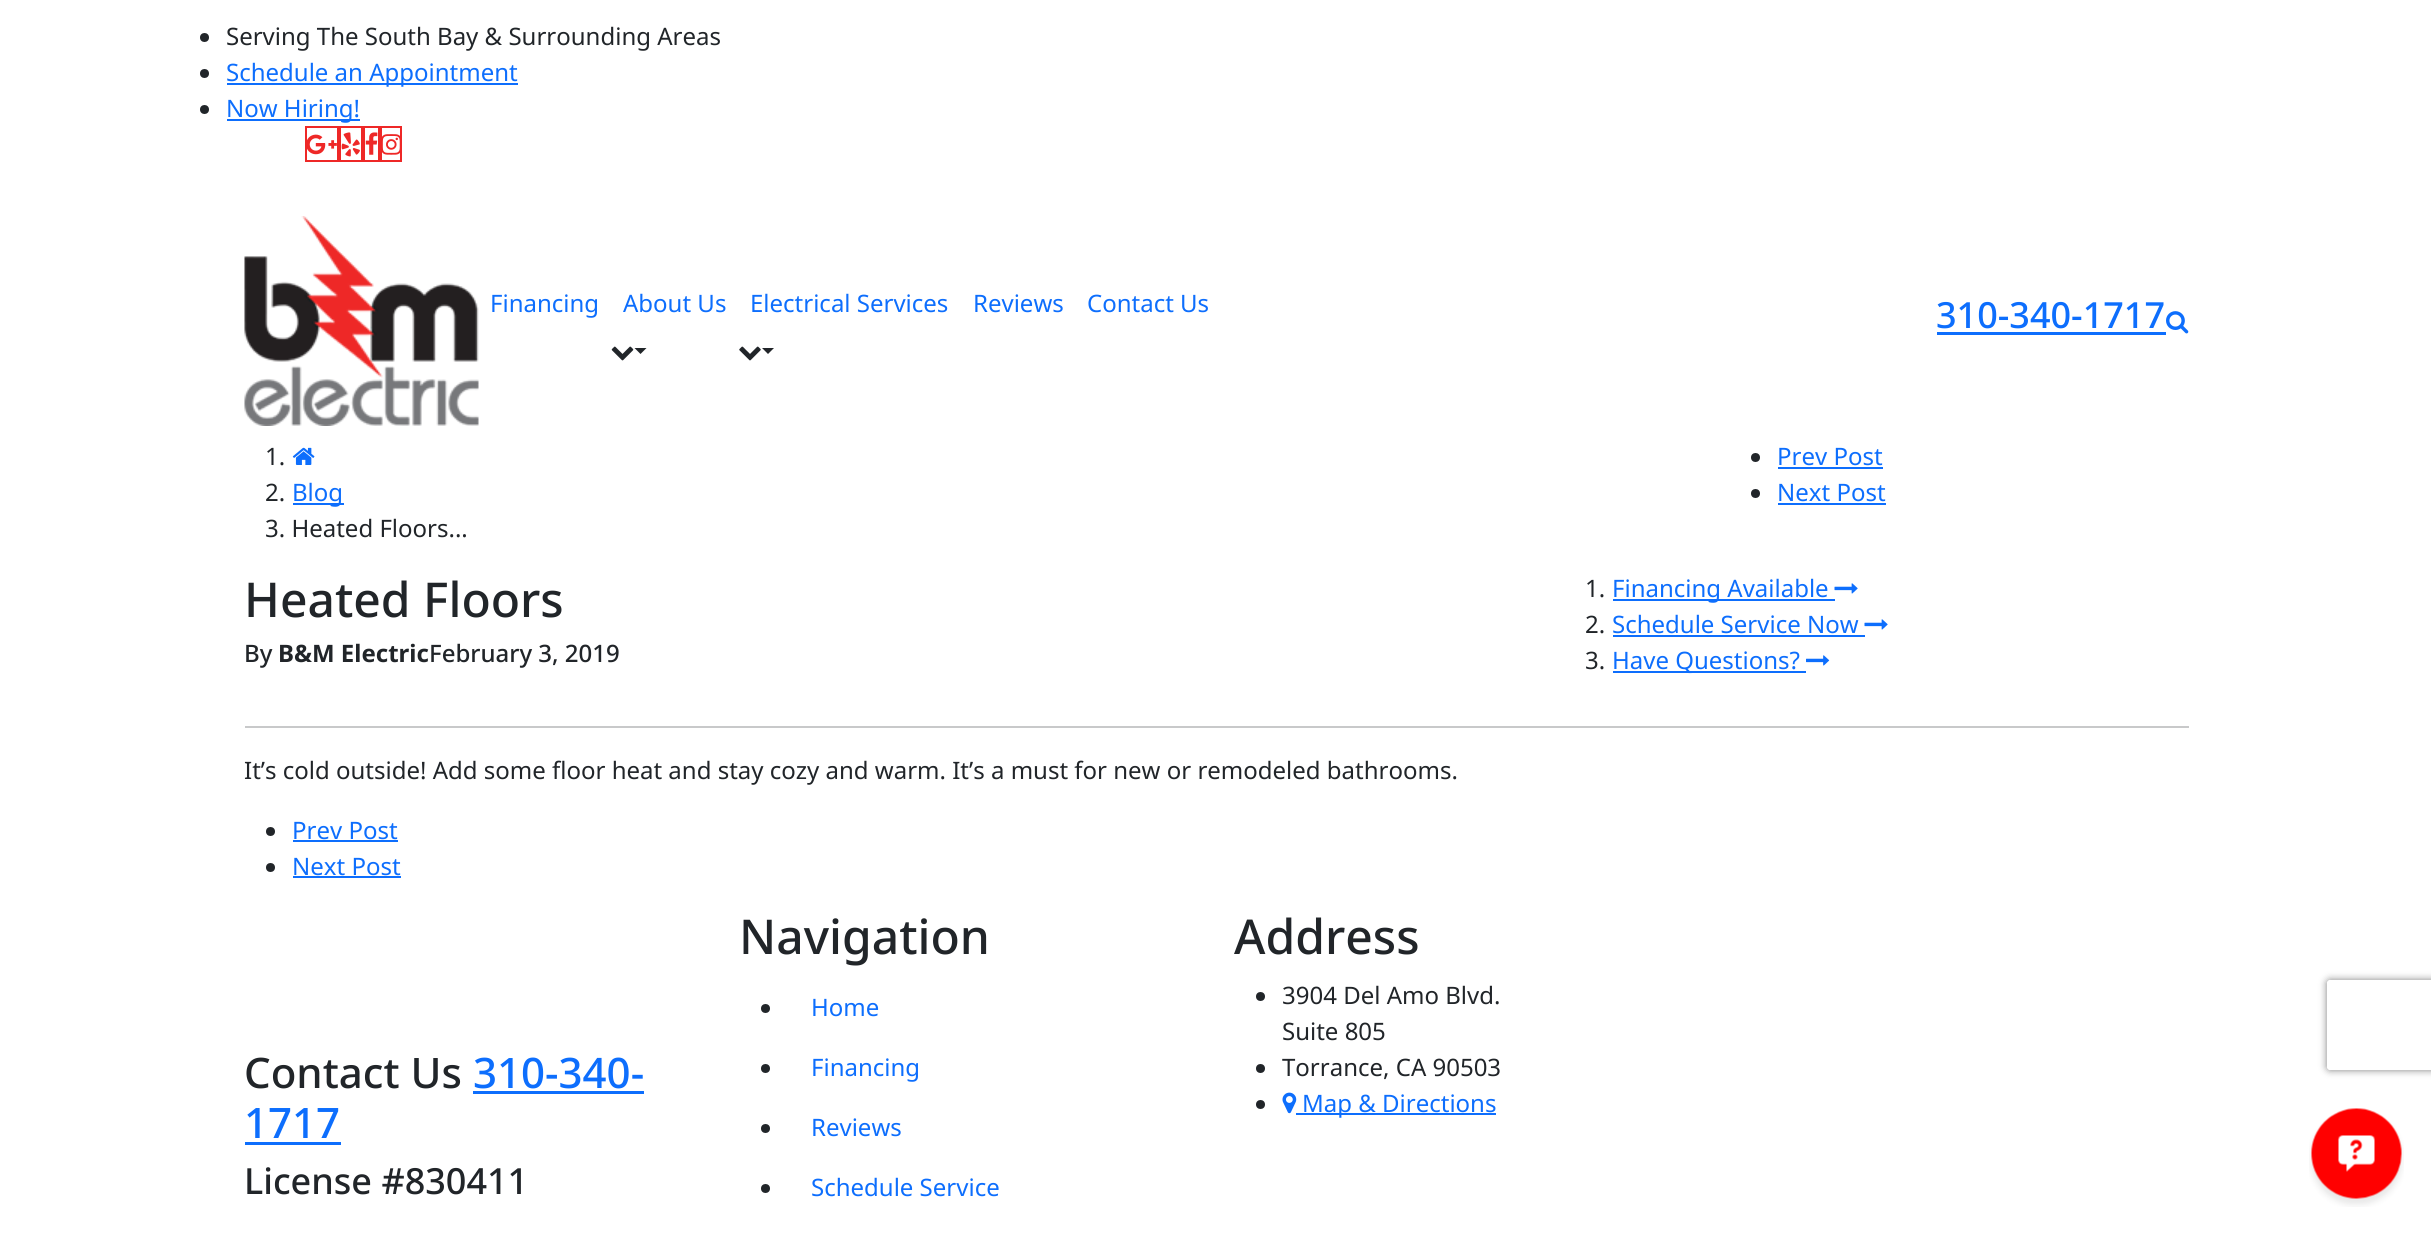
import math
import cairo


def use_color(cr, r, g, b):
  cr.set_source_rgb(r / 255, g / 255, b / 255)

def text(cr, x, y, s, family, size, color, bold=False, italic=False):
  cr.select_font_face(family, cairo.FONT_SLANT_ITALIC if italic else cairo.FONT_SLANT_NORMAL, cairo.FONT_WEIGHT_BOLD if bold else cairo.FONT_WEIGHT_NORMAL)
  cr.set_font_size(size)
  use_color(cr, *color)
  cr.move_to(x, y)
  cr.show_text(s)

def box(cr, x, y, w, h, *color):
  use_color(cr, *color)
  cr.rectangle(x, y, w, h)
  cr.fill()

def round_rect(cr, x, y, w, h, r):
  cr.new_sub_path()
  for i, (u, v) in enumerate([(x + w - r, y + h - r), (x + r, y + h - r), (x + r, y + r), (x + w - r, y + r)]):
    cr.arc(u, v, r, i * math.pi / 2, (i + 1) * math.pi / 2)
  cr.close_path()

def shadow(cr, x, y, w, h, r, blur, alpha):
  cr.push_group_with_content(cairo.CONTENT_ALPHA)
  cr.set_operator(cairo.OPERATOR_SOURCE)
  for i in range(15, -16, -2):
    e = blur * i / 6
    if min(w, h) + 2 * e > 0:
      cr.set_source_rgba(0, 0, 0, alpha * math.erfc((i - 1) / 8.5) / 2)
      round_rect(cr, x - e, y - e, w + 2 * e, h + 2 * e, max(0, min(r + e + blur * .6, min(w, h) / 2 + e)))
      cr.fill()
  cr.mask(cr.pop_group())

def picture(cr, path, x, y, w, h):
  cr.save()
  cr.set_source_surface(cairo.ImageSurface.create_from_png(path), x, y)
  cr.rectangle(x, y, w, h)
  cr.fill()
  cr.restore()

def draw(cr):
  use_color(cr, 255, 255, 255)
  cr.paint()
  use_color(cr, 33, 37, 41)
  cr.arc(204.5, 37.5, 4.5, 0, 2 * math.pi)
  cr.fill()
  cr.arc(204.5, 73.5, 4.5, 0, 2 * math.pi)
  cr.fill()
  box(cr, 227, 83, 291, 2, 13, 110, 253)
  use_color(cr, 33, 37, 41)
  cr.arc(204.5, 109.5, 4.5, 0, 2 * math.pi)
  cr.fill()
  box(cr, 227, 119, 133, 2, 13, 110, 253)
  cr.rectangle(306, 127, 32, 34)
  use_color(cr, 238, 40, 39)
  cr.stroke()
  picture(cr, "img_01.png", 307, 134, 30, 21)
  cr.rectangle(340, 127, 22, 34)
  cr.stroke()
  picture(cr, "img_02.png", 341, 132, 19, 25)
  cr.rectangle(364, 127, 15, 34)
  cr.stroke()
  picture(cr, "img_03.png", 365, 132, 13, 23)
  cr.rectangle(381, 127, 20, 34)
  cr.stroke()
  picture(cr, "img_04.png", 382, 134, 18, 21)
  picture(cr, "img_05.png", 244, 216, 235, 210)
  picture(cr, "img_06.png", 611, 346, 23, 15)
  use_color(cr, 33, 37, 41)
  cr.new_path()
  cr.move_to(634.5, 348)
  cr.line_to(646.5, 348)
  cr.line_to(640.5, 354)
  cr.close_path()
  cr.fill()
  picture(cr, "img_07.png", 739, 346, 22, 15)
  cr.new_path()
  cr.move_to(762, 348)
  cr.line_to(774, 348)
  cr.line_to(768, 354)
  cr.close_path()
  cr.fill()
  box(cr, 1937, 332, 229, 3, 13, 110, 253)
  picture(cr, "img_08.png", 2166, 311, 23, 23)
  picture(cr, "img_09.png", 292, 447, 23, 18)
  box(cr, 293, 503, 51, 2, 13, 110, 253)
  use_color(cr, 33, 37, 41)
  cr.arc(1755.5, 457.5, 4.5, 0, 2 * math.pi)
  cr.fill()
  box(cr, 1778, 467, 105, 2, 13, 110, 253)
  use_color(cr, 33, 37, 41)
  cr.arc(1755.5, 493.5, 4.5, 0, 2 * math.pi)
  cr.fill()
  box(cr, 1778, 503, 108, 2, 13, 110, 253)
  box(cr, 1613, 599, 222, 2, 13, 110, 253)
  picture(cr, "img_10.png", 1834, 583, 24, 11)
  box(cr, 1613, 635, 252, 2, 13, 110, 253)
  picture(cr, "img_10.png", 1864, 619, 24, 11)
  box(cr, 1613, 671, 193, 2, 13, 110, 253)
  picture(cr, "img_11.png", 1806, 655, 24, 11)
  box(cr, 245, 726, 1944, 2, 200, 201, 202)
  use_color(cr, 33, 37, 41)
  cr.arc(270.5, 831.5, 4.5, 0, 2 * math.pi)
  cr.fill()
  box(cr, 293, 840, 105, 2, 13, 110, 253)
  use_color(cr, 33, 37, 41)
  cr.arc(270.5, 867.5, 4.5, 0, 2 * math.pi)
  cr.fill()
  box(cr, 293, 876, 108, 2, 13, 110, 253)
  box(cr, 473, 1091, 171, 3, 13, 110, 253)
  box(cr, 245, 1142, 96, 3, 13, 110, 253)
  use_color(cr, 33, 37, 41)
  cr.arc(765.5, 1008.5, 4.5, 0, 2 * math.pi)
  cr.fill()
  cr.arc(765.5, 1068.5, 4.5, 0, 2 * math.pi)
  cr.fill()
  cr.arc(765.5, 1128.5, 4.5, 0, 2 * math.pi)
  cr.fill()
  cr.arc(765.5, 1188.5, 4.5, 0, 2 * math.pi)
  cr.fill()
  cr.arc(1260.5, 996.5, 4.5, 0, 2 * math.pi)
  cr.fill()
  cr.arc(1260.5, 1068.5, 4.5, 0, 2 * math.pi)
  cr.fill()
  cr.arc(1260.5, 1104.5, 4.5, 0, 2 * math.pi)
  cr.fill()
  picture(cr, "img_12.png", 1282, 1092, 15, 22)
  box(cr, 1296, 1113, 200, 2, 13, 110, 253)
  cr.save()
  cr.set_fill_rule(cairo.FILL_RULE_EVEN_ODD)
  cr.new_path()
  cr.move_to(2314, 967)
  cr.line_to(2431, 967)
  cr.line_to(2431, 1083)
  cr.line_to(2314, 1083)
  cr.close_path()
  cr.move_to(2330, 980)
  cr.line_to(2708, 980)
  cr.curve_to(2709.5, 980, 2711, 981.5, 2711, 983)
  cr.line_to(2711, 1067)
  cr.curve_to(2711, 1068.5, 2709.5, 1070, 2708, 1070)
  cr.line_to(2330, 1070)
  cr.curve_to(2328.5, 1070, 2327, 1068.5, 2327, 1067)
  cr.line_to(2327, 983)
  cr.curve_to(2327, 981.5, 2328.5, 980, 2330, 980)
  cr.close_path()
  cr.clip()
  use_color(cr, 128, 128, 128)
  shadow(cr, 2327, 980, 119, 90, 3, 4, 1)
  cr.restore()
  picture(cr, "img_13.png", 2309, 1108, 95, 99)
  text(cr, 226, 45, "Serving The South Bay & Surrounding Areas", "Noto Sans", 24, (33, 37, 41))
  text(cr, 226, 81, "Schedule an Appointment", "Noto Sans", 24, (13, 110, 253))
  text(cr, 226, 117, "Now Hiring!", "Noto Sans", 24, (13, 110, 253))
  text(cr, 490, 312, "Financing", "Noto Sans", 24, (13, 110, 253))
  text(cr, 623, 312, "About Us", "Noto Sans", 24, (13, 110, 253))
  text(cr, 750, 312, "Electrical Services", "Noto Sans", 24, (13, 110, 253))
  text(cr, 973, 312, "Reviews", "Noto Sans", 24, (13, 110, 253))
  text(cr, 1087, 312, "Contact Us", "Noto Sans", 24, (13, 110, 253))
  text(cr, 1936, 328, "310-340-1717", "Noto Sans Medium", 36, (13, 110, 253))
  text(cr, 265, 465, "1.", "Noto Sans", 24, (33, 37, 41))
  text(cr, 265, 501, "2.", "Noto Sans", 24, (33, 37, 41))
  text(cr, 292, 501, "Blog", "Noto Sans", 24, (13, 110, 253))
  text(cr, 265, 537, "3. Heated Floors...", "Noto Sans", 24, (33, 37, 41))
  text(cr, 1777, 465, "Prev Post", "Noto Sans", 24, (13, 110, 253))
  text(cr, 1777, 501, "Next Post", "Noto Sans", 24, (13, 110, 253))
  text(cr, 244, 617, "Heated Floors", "Noto Sans Medium", 48, (33, 37, 41))
  text(cr, 244, 662, "By", "Noto Sans Medium", 24, (33, 37, 41))
  text(cr, 278, 662, "B&M Electric", "Noto Sans", 24, (33, 37, 41), bold=True)
  text(cr, 429, 662, "February 3, 2019", "Noto Sans Medium", 24, (33, 37, 41))
  text(cr, 1585, 597, "1.", "Noto Sans", 24, (33, 37, 41))
  text(cr, 1612, 597, "Financing Available", "Noto Sans", 24, (13, 110, 253))
  text(cr, 1585, 633, "2.", "Noto Sans", 24, (33, 37, 41))
  text(cr, 1612, 633, "Schedule Service Now", "Noto Sans", 24, (13, 110, 253))
  text(cr, 1585, 669, "3.", "Noto Sans", 24, (33, 37, 41))
  text(cr, 1612, 669, "Have Questions?", "Noto Sans", 24, (13, 110, 253))
  text(cr, 244, 779, "It’s cold outside! Add some floor heat and stay cozy and warm. It’s a must for new or remodeled bathrooms.", "Noto Sans", 24, (33, 37, 41))
  text(cr, 292, 839, "Prev Post", "Noto Sans", 24, (13, 110, 253))
  text(cr, 292, 875, "Next Post", "Noto Sans", 24, (13, 110, 253))
  text(cr, 244, 1088, "Contact Us", "Noto Sans Medium", 42, (33, 37, 41))
  text(cr, 473, 1088, "310-340-", "Noto Sans Medium", 42, (13, 110, 253))
  text(cr, 244, 1138, "1717", "Noto Sans Medium", 42, (13, 110, 253))
  text(cr, 244, 1194, "License #830411", "Noto Sans Medium", 36, (33, 37, 41))
  text(cr, 739, 954, "Navigation", "Noto Sans Medium", 48, (33, 37, 41))
  text(cr, 811, 1016, "Home", "Noto Sans", 24, (13, 110, 253))
  text(cr, 811, 1076, "Financing", "Noto Sans", 24, (13, 110, 253))
  text(cr, 811, 1136, "Reviews", "Noto Sans", 24, (13, 110, 253))
  text(cr, 811, 1196, "Schedule Service", "Noto Sans", 24, (13, 110, 253))
  text(cr, 1234, 954, "Address", "Noto Sans Medium", 48, (33, 37, 41))
  text(cr, 1282, 1004, "3904 Del Amo Blvd.", "Noto Sans", 24, (33, 37, 41))
  text(cr, 1282, 1040, "Suite 805", "Noto Sans", 24, (33, 37, 41))
  text(cr, 1282, 1076, "Torrance, CA 90503", "Noto Sans", 24, (33, 37, 41))
  text(cr, 1302, 1112, "Map & Directions", "Noto Sans", 24, (13, 110, 253))


surface = cairo.ImageSurface(cairo.FORMAT_RGB24, 2431, 1234)
cr = cairo.Context(surface)
options = cairo.FontOptions()
options.set_hint_metrics(cairo.HINT_METRICS_OFF)
options.set_hint_style(cairo.HINT_STYLE_NONE)
cr.set_font_options(options)
cr.set_miter_limit(4)
draw(cr)
surface.write_to_png("out.png")
